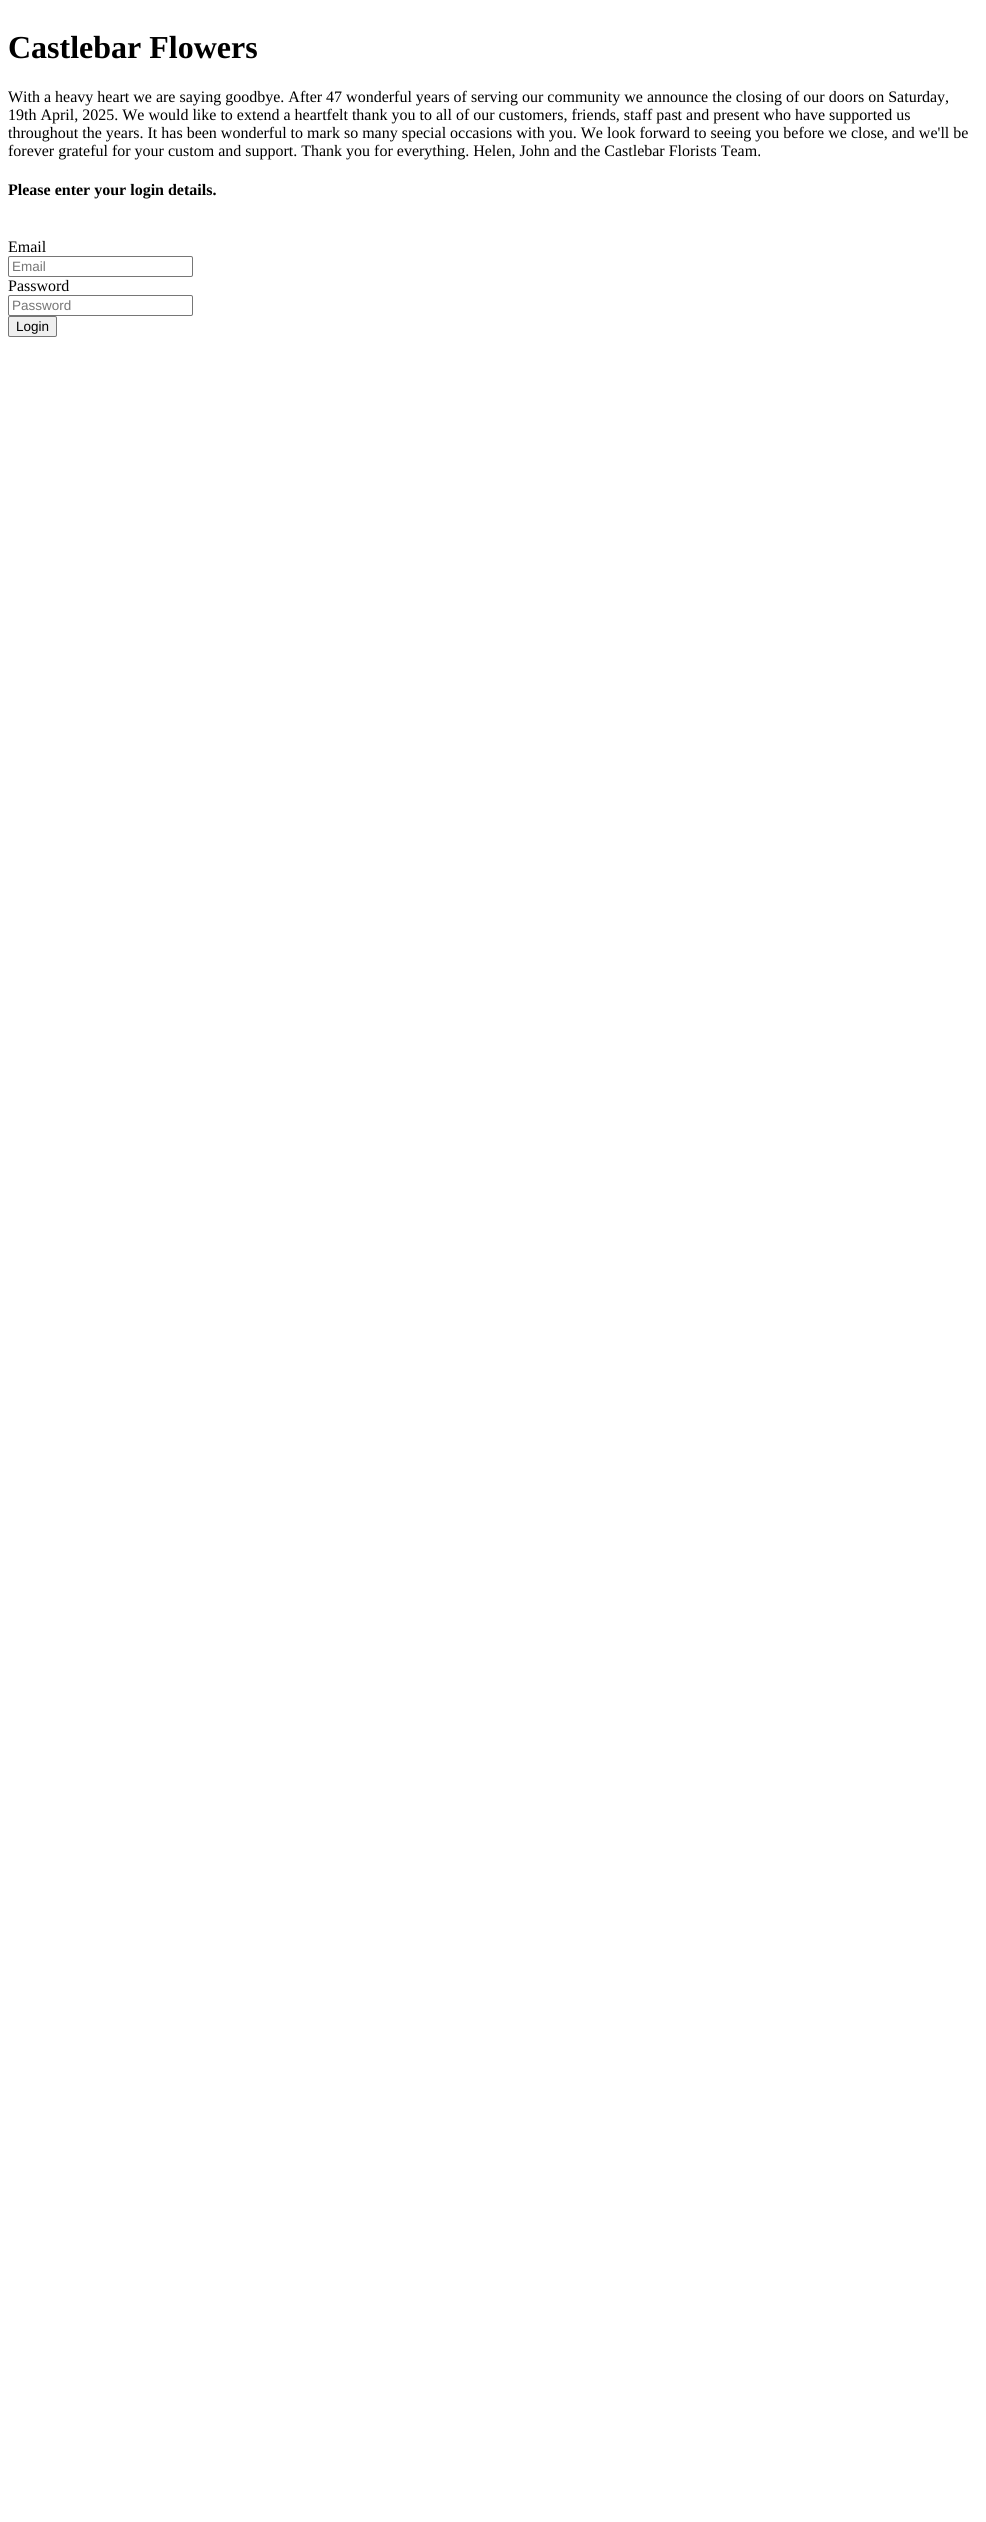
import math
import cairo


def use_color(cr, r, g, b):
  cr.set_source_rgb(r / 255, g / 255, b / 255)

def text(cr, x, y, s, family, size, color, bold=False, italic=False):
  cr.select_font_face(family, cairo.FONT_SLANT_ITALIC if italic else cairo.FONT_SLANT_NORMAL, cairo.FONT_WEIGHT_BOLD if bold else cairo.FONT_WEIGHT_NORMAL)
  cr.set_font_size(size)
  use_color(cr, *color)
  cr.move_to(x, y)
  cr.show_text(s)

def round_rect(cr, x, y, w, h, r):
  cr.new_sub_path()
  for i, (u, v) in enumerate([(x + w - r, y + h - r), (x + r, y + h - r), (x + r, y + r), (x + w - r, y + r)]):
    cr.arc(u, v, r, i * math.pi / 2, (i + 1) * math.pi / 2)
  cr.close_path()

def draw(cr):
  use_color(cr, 255, 255, 255)
  cr.paint()
  round_rect(cr, 8.5, 256.5, 184, 20, 1.5)
  use_color(cr, 118, 118, 118)
  cr.set_line_width(1)
  cr.stroke()
  round_rect(cr, 8.5, 295.5, 184, 20, 1.5)
  cr.stroke()
  use_color(cr, 239, 239, 239)
  round_rect(cr, 8.5, 316.5, 48, 20, 1.5)
  cr.fill_preserve()
  use_color(cr, 118, 118, 118)
  cr.stroke()
  text(cr, 8, 58, "Castlebar Flowers", "Liberation Serif", 32, (0, 0, 0), bold=True)
  text(cr, 8, 102, "With a heavy heart we are saying goodbye. After 47 wonderful years of serving our community we announce the closing of our doors on Saturday,", "Liberation Serif", 16, (0, 0, 0))
  text(cr, 8, 120, "19th April, 2025. We would like to extend a heartfelt thank you to all of our customers, friends, staff past and present who have supported us", "Liberation Serif", 16, (0, 0, 0))
  text(cr, 8, 138, "throughout the years. It has been wonderful to mark so many special occasions with you. We look forward to seeing you before we close, and we'll be", "Liberation Serif", 16, (0, 0, 0))
  text(cr, 8, 156, "forever grateful for your custom and support. Thank you for everything. Helen, John and the Castlebar Florists Team.", "Liberation Serif", 16, (0, 0, 0))
  text(cr, 8, 195, "Please enter your login details.", "Liberation Serif", 16, (0, 0, 0), bold=True)
  text(cr, 8, 252, "Email", "Liberation Serif", 16, (0, 0, 0))
  text(cr, 12, 271, "Email", "Liberation Sans", 13.5, (117, 117, 117))
  text(cr, 8, 291, "Password", "Liberation Serif", 16, (0, 0, 0))
  text(cr, 12, 310, "Password", "Liberation Sans", 13.5, (117, 117, 117))
  text(cr, 16, 331, "Login", "Liberation Sans", 13.5, (0, 0, 0))


surface = cairo.ImageSurface(cairo.FORMAT_RGB24, 986, 2522)
cr = cairo.Context(surface)
options = cairo.FontOptions()
options.set_hint_metrics(cairo.HINT_METRICS_OFF)
options.set_hint_style(cairo.HINT_STYLE_NONE)
cr.set_font_options(options)
cr.set_miter_limit(4)
draw(cr)
surface.write_to_png("out.png")
